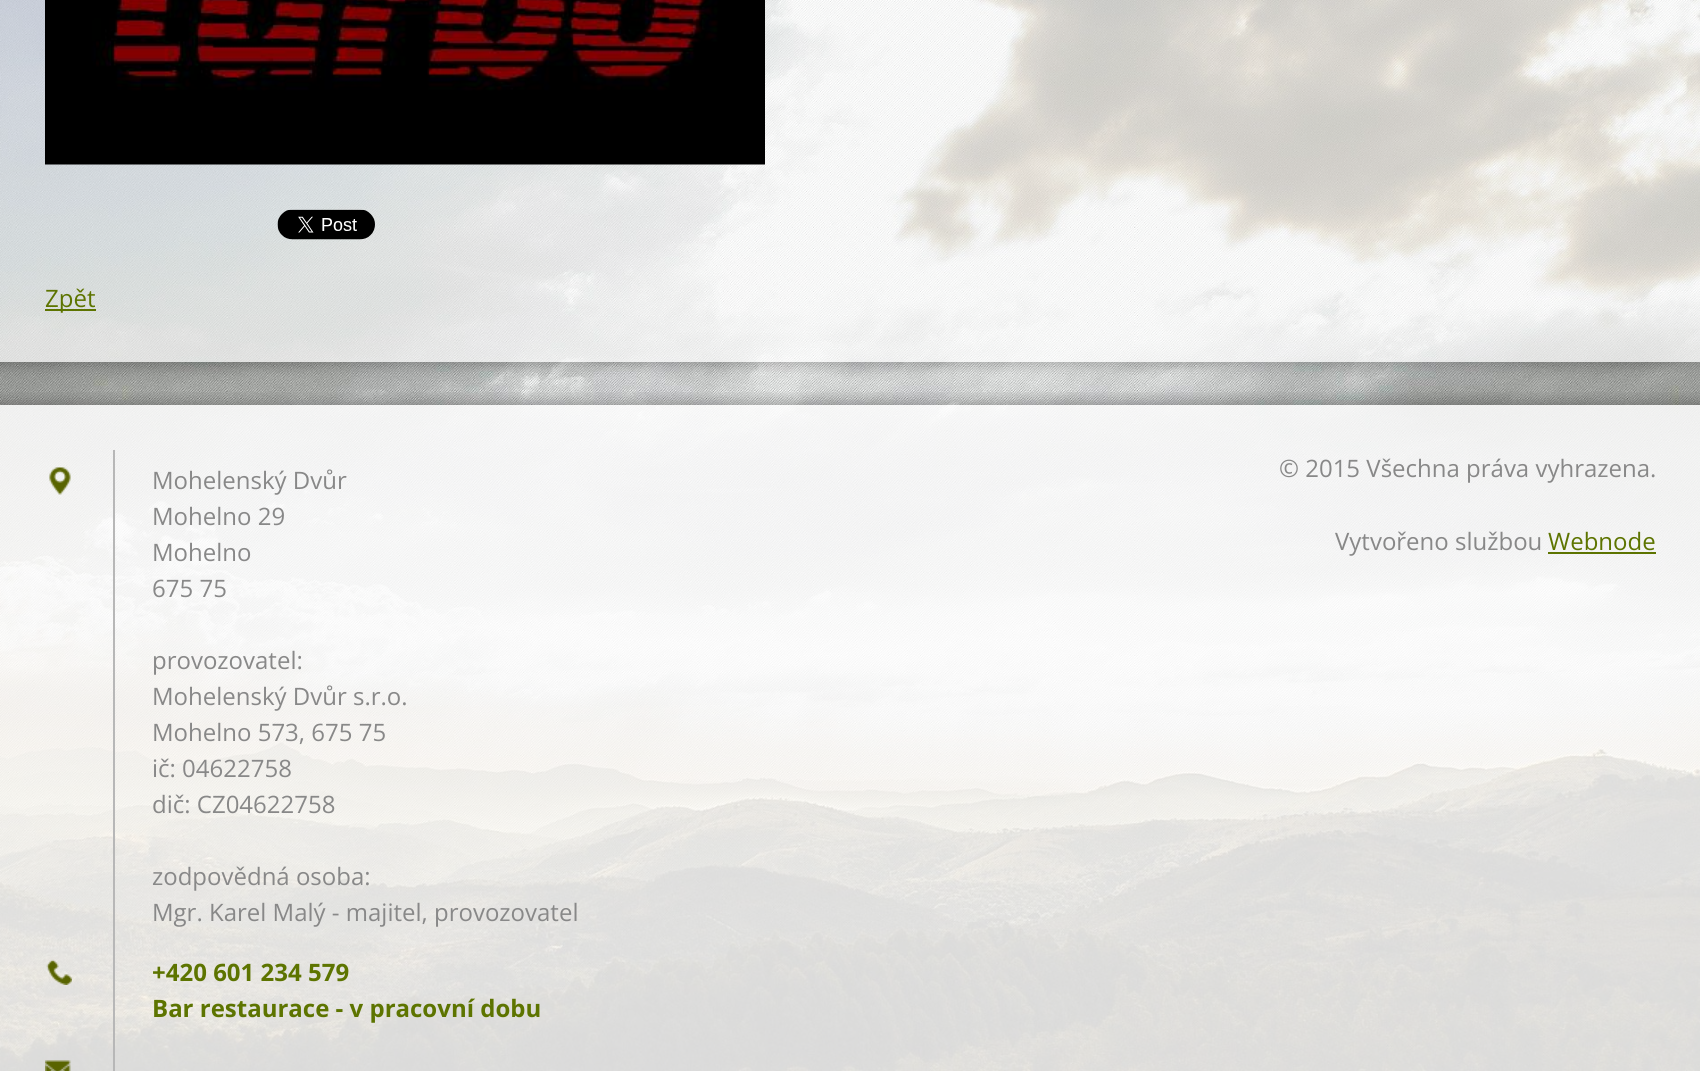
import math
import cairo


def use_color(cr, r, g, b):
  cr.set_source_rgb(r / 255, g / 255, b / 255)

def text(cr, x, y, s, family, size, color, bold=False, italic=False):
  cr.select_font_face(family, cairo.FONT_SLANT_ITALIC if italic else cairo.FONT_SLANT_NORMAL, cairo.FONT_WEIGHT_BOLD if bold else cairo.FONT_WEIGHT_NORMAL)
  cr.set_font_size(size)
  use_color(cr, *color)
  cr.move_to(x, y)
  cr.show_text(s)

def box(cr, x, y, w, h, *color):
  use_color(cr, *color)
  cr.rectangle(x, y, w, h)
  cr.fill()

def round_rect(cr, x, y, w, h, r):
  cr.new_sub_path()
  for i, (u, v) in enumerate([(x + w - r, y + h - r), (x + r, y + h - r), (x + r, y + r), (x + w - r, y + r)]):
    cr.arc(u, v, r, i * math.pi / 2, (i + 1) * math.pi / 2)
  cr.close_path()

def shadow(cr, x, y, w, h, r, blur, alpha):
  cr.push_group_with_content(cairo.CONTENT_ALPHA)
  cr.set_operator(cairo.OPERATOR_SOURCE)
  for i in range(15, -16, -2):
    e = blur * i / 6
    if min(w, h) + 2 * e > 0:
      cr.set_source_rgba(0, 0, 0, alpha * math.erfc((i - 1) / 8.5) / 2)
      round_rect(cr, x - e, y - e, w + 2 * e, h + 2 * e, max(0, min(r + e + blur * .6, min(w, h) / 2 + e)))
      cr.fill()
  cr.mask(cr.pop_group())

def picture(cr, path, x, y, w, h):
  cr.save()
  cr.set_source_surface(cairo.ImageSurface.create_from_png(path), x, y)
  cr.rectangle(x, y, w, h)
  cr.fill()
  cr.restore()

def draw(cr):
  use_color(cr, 255, 255, 255)
  cr.paint()
  picture(cr, "img_01.png", 0, 0, 1700, 1071)
  cr.save()
  cr.set_fill_rule(cairo.FILL_RULE_EVEN_ODD)
  cr.new_path()
  cr.move_to(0, 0)
  cr.line_to(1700, 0)
  cr.line_to(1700, 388)
  cr.line_to(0, 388)
  cr.close_path()
  cr.move_to(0, -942)
  cr.line_to(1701, -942)
  cr.line_to(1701, 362)
  cr.line_to(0, 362)
  cr.close_path()
  cr.clip()
  use_color(cr, 0, 0, 0)
  shadow(cr, -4, -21, 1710, 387, 0, 7, 0.25)
  cr.restore()
  cr.set_source_rgba(1, 1, 1, 0.7)
  cr.rectangle(0, 0, 1700, 210)
  cr.fill()
  picture(cr, "img_02.png", 45, 0, 720, 165)
  cr.rectangle(0, 210, 1700, 152)
  cr.fill()
  picture(cr, "img_03.png", 277, 209, 98, 31)
  box(cr, 45, 309, 51, 2, 93, 116, 0)
  cr.save()
  cr.rectangle(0, 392, 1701, 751)
  cr.clip()
  cr.rectangle(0, 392, 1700, 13)
  cr.clip()
  use_color(cr, 0, 0, 0)
  shadow(cr, -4, 401, 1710, 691, 0, 7, 0.25)
  cr.restore()
  cr.set_source_rgba(1, 1, 1, 0.85)
  cr.rectangle(0, 405, 1700, 666)
  cr.fill()
  picture(cr, "img_04.png", 49, 467, 22, 28)
  box(cr, 113, 450, 2, 621, 183, 183, 183)
  picture(cr, "img_05.png", 46, 959, 26, 26)
  picture(cr, "img_06.png", 45, 1060, 26, 11)
  box(cr, 1548, 552, 108, 2, 93, 116, 0)
  text(cr, 45, 307, "Zpět", "Open Sans", 24, (93, 116, 0))
  text(cr, 152, 489, "Mohelenský Dvůr", "Open Sans", 24, (136, 136, 136))
  text(cr, 152, 525, "Mohelno 29", "Open Sans", 24, (136, 136, 136))
  text(cr, 152, 561, "Mohelno", "Open Sans", 24, (136, 136, 136))
  text(cr, 152, 597, "675 75", "Open Sans", 24, (136, 136, 136))
  text(cr, 152, 669, "provozovatel:", "Open Sans", 24, (136, 136, 136))
  text(cr, 152, 705, "Mohelenský Dvůr s.r.o.", "Open Sans", 24, (136, 136, 136))
  text(cr, 152, 741, "Mohelno 573, 675 75", "Open Sans", 24, (136, 136, 136))
  text(cr, 152, 777, "ič: 04622758", "Open Sans", 24, (136, 136, 136))
  text(cr, 152, 813, "dič: CZ04622758", "Open Sans", 24, (136, 136, 136))
  text(cr, 152, 885, "zodpovědná osoba:", "Open Sans", 24, (136, 136, 136))
  text(cr, 152, 921, "Mgr. Karel Malý - majitel, provozovatel", "Open Sans", 24, (136, 136, 136))
  text(cr, 152, 981, "+420 601 234 579", "Open Sans", 24, (93, 116, 0), bold=True)
  text(cr, 152, 1017, "Bar restaurace - v pracovní dobu", "Open Sans", 24, (93, 116, 0), bold=True)
  text(cr, 1279, 477, "© 2015 Všechna práva vyhrazena.", "Open Sans", 24, (136, 136, 136))
  text(cr, 1335, 550, "Vytvořeno službou", "Open Sans", 24, (136, 136, 136))
  text(cr, 1548, 550, "Webnode", "Open Sans", 24, (93, 116, 0))


surface = cairo.ImageSurface(cairo.FORMAT_RGB24, 1700, 1071)
cr = cairo.Context(surface)
options = cairo.FontOptions()
options.set_hint_metrics(cairo.HINT_METRICS_OFF)
options.set_hint_style(cairo.HINT_STYLE_NONE)
cr.set_font_options(options)
cr.set_miter_limit(4)
draw(cr)
surface.write_to_png("out.png")
